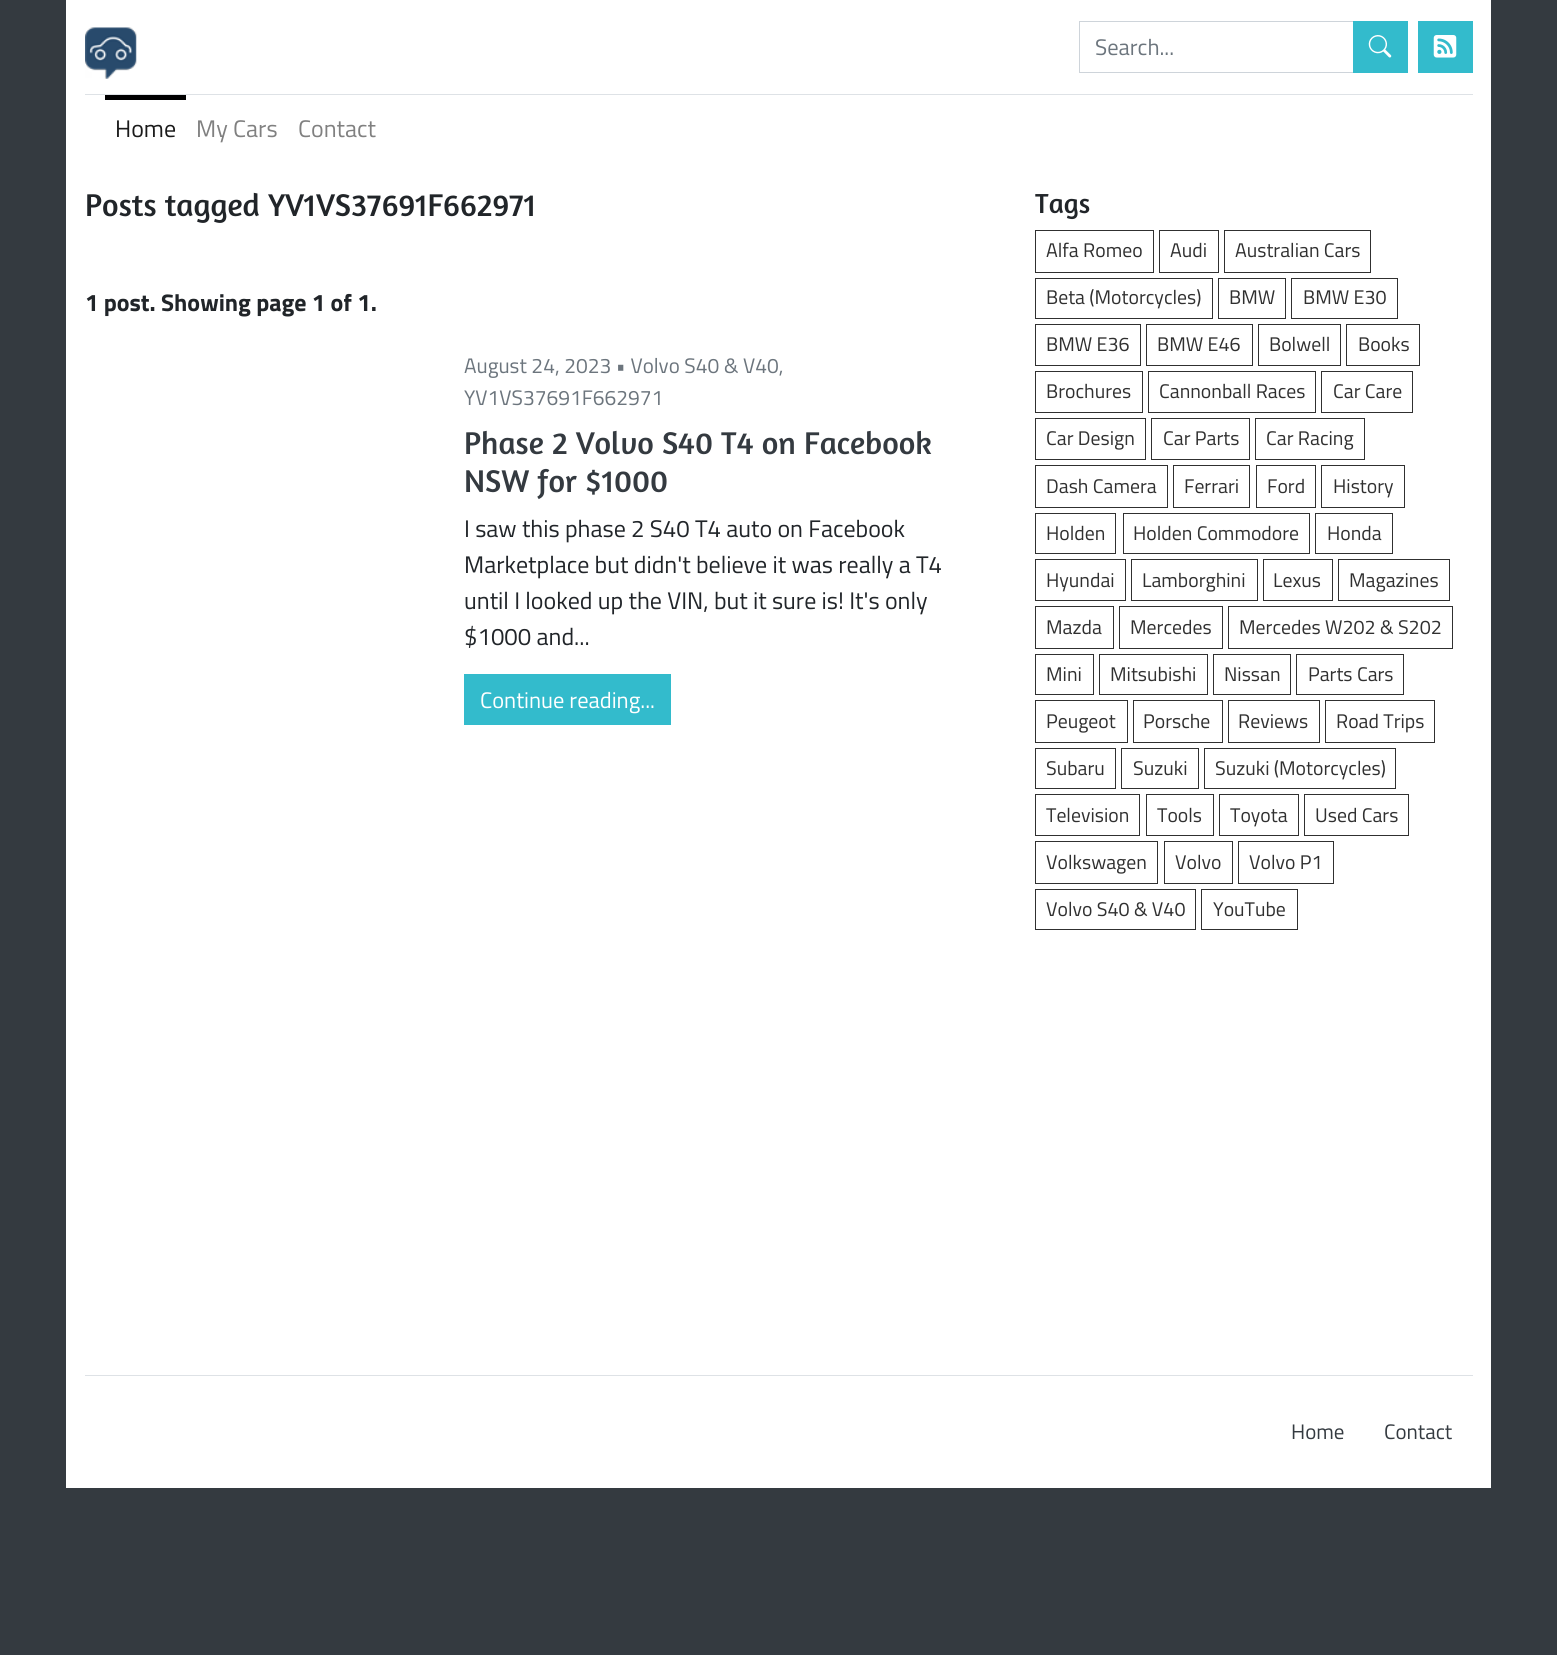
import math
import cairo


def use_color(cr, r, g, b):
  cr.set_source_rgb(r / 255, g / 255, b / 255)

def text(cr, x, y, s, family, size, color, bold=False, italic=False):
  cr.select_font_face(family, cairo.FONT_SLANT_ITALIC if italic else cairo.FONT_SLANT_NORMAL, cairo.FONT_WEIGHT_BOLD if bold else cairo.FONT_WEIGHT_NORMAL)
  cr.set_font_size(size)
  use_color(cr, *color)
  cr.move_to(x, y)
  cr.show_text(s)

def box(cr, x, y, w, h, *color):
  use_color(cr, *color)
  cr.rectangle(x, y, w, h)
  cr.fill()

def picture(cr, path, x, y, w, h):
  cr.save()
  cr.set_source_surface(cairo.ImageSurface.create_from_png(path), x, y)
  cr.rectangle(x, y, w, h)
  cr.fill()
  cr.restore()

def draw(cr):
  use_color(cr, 52, 58, 64)
  cr.paint()
  box(cr, 66, 0, 1425, 1488, 255, 255, 255)
  box(cr, 85, 94, 1388, 1, 222, 226, 230)
  picture(cr, "img_01.png", 85, 27, 52, 52)
  cr.rectangle(1079.5, 21.5, 274, 51)
  use_color(cr, 206, 212, 218)
  cr.set_line_width(1)
  cr.stroke()
  box(cr, 1353, 21, 55, 52, 51, 187, 204)
  picture(cr, "img_02.png", 1368, 35, 24, 23)
  box(cr, 1418, 21, 55, 52, 51, 187, 204)
  picture(cr, "img_03.png", 1433, 35, 24, 23)
  box(cr, 105, 95, 81, 5, 0, 0, 0)
  box(cr, 464, 674, 207, 51, 51, 187, 204)
  cr.rectangle(1035.5, 230.5, 118, 42)
  use_color(cr, 48, 48, 48)
  cr.stroke()
  cr.rectangle(1159.5, 230.5, 59, 42)
  cr.stroke()
  cr.rectangle(1224.5, 230.5, 146, 42)
  cr.stroke()
  cr.rectangle(1035.5, 278.5, 177, 40)
  cr.stroke()
  cr.rectangle(1218.5, 278.5, 67, 40)
  cr.stroke()
  cr.rectangle(1291.5, 278.5, 106, 40)
  cr.stroke()
  cr.rectangle(1035.5, 324.5, 105, 41)
  cr.stroke()
  cr.rectangle(1146.5, 324.5, 106, 41)
  cr.stroke()
  cr.rectangle(1258.5, 324.5, 82, 41)
  cr.stroke()
  cr.rectangle(1346.5, 324.5, 73, 41)
  cr.stroke()
  cr.rectangle(1035.5, 371.5, 107, 41)
  cr.stroke()
  cr.rectangle(1148.5, 371.5, 167, 41)
  cr.stroke()
  cr.rectangle(1321.5, 371.5, 91, 41)
  cr.stroke()
  cr.rectangle(1035.5, 418.5, 110, 41)
  cr.stroke()
  cr.rectangle(1151.5, 418.5, 98, 41)
  cr.stroke()
  cr.rectangle(1255.5, 418.5, 109, 41)
  cr.stroke()
  cr.rectangle(1035.5, 465.5, 132, 42)
  cr.stroke()
  cr.rectangle(1173.5, 465.5, 76, 42)
  cr.stroke()
  cr.rectangle(1256.5, 465.5, 59, 42)
  cr.stroke()
  cr.rectangle(1321.5, 465.5, 83, 42)
  cr.stroke()
  cr.rectangle(1035.5, 513.5, 80, 40)
  cr.stroke()
  cr.rectangle(1123.5, 513.5, 186, 40)
  cr.stroke()
  cr.rectangle(1315.5, 513.5, 77, 40)
  cr.stroke()
  cr.rectangle(1035.5, 559.5, 90, 41)
  cr.stroke()
  cr.rectangle(1131.5, 559.5, 126, 41)
  cr.stroke()
  cr.rectangle(1263.5, 559.5, 69, 41)
  cr.stroke()
  cr.rectangle(1338.5, 559.5, 111, 41)
  cr.stroke()
  cr.rectangle(1035.5, 606.5, 78, 42)
  cr.stroke()
  cr.rectangle(1119.5, 606.5, 103, 42)
  cr.stroke()
  cr.rectangle(1228.5, 606.5, 224, 42)
  cr.stroke()
  cr.rectangle(1035.5, 654.5, 58, 40)
  cr.stroke()
  cr.rectangle(1099.5, 654.5, 108, 40)
  cr.stroke()
  cr.rectangle(1213.5, 654.5, 77, 40)
  cr.stroke()
  cr.rectangle(1296.5, 654.5, 107, 40)
  cr.stroke()
  cr.rectangle(1035.5, 700.5, 92, 42)
  cr.stroke()
  cr.rectangle(1133.5, 700.5, 89, 42)
  cr.stroke()
  cr.rectangle(1228.5, 700.5, 91, 42)
  cr.stroke()
  cr.rectangle(1325.5, 700.5, 109, 42)
  cr.stroke()
  cr.rectangle(1035.5, 748.5, 80, 40)
  cr.stroke()
  cr.rectangle(1121.5, 748.5, 77, 40)
  cr.stroke()
  cr.rectangle(1204.5, 748.5, 191, 40)
  cr.stroke()
  cr.rectangle(1035.5, 794.5, 104, 41)
  cr.stroke()
  cr.rectangle(1146.5, 794.5, 67, 41)
  cr.stroke()
  cr.rectangle(1219.5, 794.5, 79, 41)
  cr.stroke()
  cr.rectangle(1304.5, 794.5, 104, 41)
  cr.stroke()
  cr.rectangle(1035.5, 841.5, 122, 42)
  cr.stroke()
  cr.rectangle(1164.5, 841.5, 68, 42)
  cr.stroke()
  cr.rectangle(1238.5, 841.5, 95, 42)
  cr.stroke()
  cr.rectangle(1035.5, 889.5, 160, 40)
  cr.stroke()
  cr.rectangle(1201.5, 889.5, 96, 40)
  cr.stroke()
  box(cr, 85, 1375, 1388, 1, 222, 226, 230)
  text(cr, 1095, 55, "Search...", "Titillium Web", 22.5, (108, 117, 125))
  text(cr, 115, 137, "Home", "Titillium Web", 24, (26, 26, 26))
  text(cr, 196, 137, "My Cars", "Titillium Web", 24, (128, 128, 128))
  text(cr, 298, 137, "Contact", "Titillium Web", 24, (128, 128, 128))
  text(cr, 85, 216, "Posts tagged YV1VS37691F662971", "Amaranth", 32, (33, 37, 41))
  text(cr, 85, 311, "1 post. Showing page 1 of 1.", "Titillium Web", 24, (33, 37, 41), bold=True)
  text(cr, 464, 373, "August 24, 2023 • Volvo S40 & V40,", "Titillium Web", 21, (108, 117, 125))
  text(cr, 464, 405, "YV1VS37691F662971", "Titillium Web", 21, (108, 117, 125))
  text(cr, 464, 454, "Phase 2 Volvo S40 T4 on Facebook", "Amaranth", 32, (52, 58, 64))
  text(cr, 464, 492, "NSW for $1000", "Amaranth", 32, (52, 58, 64))
  text(cr, 464, 537, "I saw this phase 2 S40 T4 auto on Facebook", "Titillium Web", 24, (33, 37, 41))
  text(cr, 464, 573, "Marketplace but didn't believe it was really a T4", "Titillium Web", 24, (33, 37, 41))
  text(cr, 464, 609, "until I looked up the VIN, but it sure is! It's only", "Titillium Web", 24, (33, 37, 41))
  text(cr, 464, 645, "$1000 and...", "Titillium Web", 24, (33, 37, 41))
  text(cr, 480, 708, "Continue reading...", "Titillium Web", 22.5, (255, 255, 255))
  text(cr, 1035, 213, "Tags", "Amaranth", 28, (33, 37, 41))
  text(cr, 1046, 257, "Alfa Romeo", "Titillium Web", 19.75, (48, 48, 48))
  text(cr, 1170, 257, "Audi", "Titillium Web", 19.75, (48, 48, 48))
  text(cr, 1235, 257, "Australian Cars", "Titillium Web", 19.75, (48, 48, 48))
  text(cr, 1046, 304, "Beta (Motorcycles)", "Titillium Web", 19.75, (48, 48, 48))
  text(cr, 1229, 304, "BMW", "Titillium Web", 19.75, (48, 48, 48))
  text(cr, 1303, 304, "BMW E30", "Titillium Web", 19.75, (48, 48, 48))
  text(cr, 1046, 351, "BMW E36", "Titillium Web", 19.75, (48, 48, 48))
  text(cr, 1157, 351, "BMW E46", "Titillium Web", 19.75, (48, 48, 48))
  text(cr, 1269, 351, "Bolwell", "Titillium Web", 19.75, (48, 48, 48))
  text(cr, 1358, 351, "Books", "Titillium Web", 19.75, (48, 48, 48))
  text(cr, 1046, 398, "Brochures", "Titillium Web", 19.75, (48, 48, 48))
  text(cr, 1159, 398, "Cannonball Races", "Titillium Web", 19.75, (48, 48, 48))
  text(cr, 1333, 398, "Car Care", "Titillium Web", 19.75, (48, 48, 48))
  text(cr, 1046, 445, "Car Design", "Titillium Web", 19.75, (48, 48, 48))
  text(cr, 1163, 445, "Car Parts", "Titillium Web", 19.75, (48, 48, 48))
  text(cr, 1266, 445, "Car Racing", "Titillium Web", 19.75, (48, 48, 48))
  text(cr, 1046, 493, "Dash Camera", "Titillium Web", 19.75, (48, 48, 48))
  text(cr, 1184, 493, "Ferrari", "Titillium Web", 19.75, (48, 48, 48))
  text(cr, 1267, 493, "Ford", "Titillium Web", 19.75, (48, 48, 48))
  text(cr, 1333, 493, "History", "Titillium Web", 19.75, (48, 48, 48))
  text(cr, 1046, 540, "Holden", "Titillium Web", 19.75, (48, 48, 48))
  text(cr, 1133, 540, "Holden Commodore", "Titillium Web", 19.75, (48, 48, 48))
  text(cr, 1327, 540, "Honda", "Titillium Web", 19.75, (48, 48, 48))
  text(cr, 1046, 587, "Hyundai", "Titillium Web", 19.75, (48, 48, 48))
  text(cr, 1142, 587, "Lamborghini", "Titillium Web", 19.75, (48, 48, 48))
  text(cr, 1273, 587, "Lexus", "Titillium Web", 19.75, (48, 48, 48))
  text(cr, 1349, 587, "Magazines", "Titillium Web", 19.75, (48, 48, 48))
  text(cr, 1046, 634, "Mazda", "Titillium Web", 19.75, (48, 48, 48))
  text(cr, 1130, 634, "Mercedes", "Titillium Web", 19.75, (48, 48, 48))
  text(cr, 1239, 634, "Mercedes W202 & S202", "Titillium Web", 19.75, (48, 48, 48))
  text(cr, 1046, 681, "Mini", "Titillium Web", 19.75, (48, 48, 48))
  text(cr, 1110, 681, "Mitsubishi", "Titillium Web", 19.75, (48, 48, 48))
  text(cr, 1224, 681, "Nissan", "Titillium Web", 19.75, (48, 48, 48))
  text(cr, 1308, 681, "Parts Cars", "Titillium Web", 19.75, (48, 48, 48))
  text(cr, 1046, 728, "Peugeot", "Titillium Web", 19.75, (48, 48, 48))
  text(cr, 1143, 728, "Porsche", "Titillium Web", 19.75, (48, 48, 48))
  text(cr, 1238, 728, "Reviews", "Titillium Web", 19.75, (48, 48, 48))
  text(cr, 1336, 728, "Road Trips", "Titillium Web", 19.75, (48, 48, 48))
  text(cr, 1046, 775, "Subaru", "Titillium Web", 19.75, (48, 48, 48))
  text(cr, 1133, 775, "Suzuki", "Titillium Web", 19.75, (48, 48, 48))
  text(cr, 1215, 775, "Suzuki (Motorcycles)", "Titillium Web", 19.75, (48, 48, 48))
  text(cr, 1046, 822, "Television", "Titillium Web", 19.75, (48, 48, 48))
  text(cr, 1157, 822, "Tools", "Titillium Web", 19.75, (48, 48, 48))
  text(cr, 1230, 822, "Toyota", "Titillium Web", 19.75, (48, 48, 48))
  text(cr, 1315, 822, "Used Cars", "Titillium Web", 19.75, (48, 48, 48))
  text(cr, 1046, 869, "Volkswagen", "Titillium Web", 19.75, (48, 48, 48))
  text(cr, 1175, 869, "Volvo", "Titillium Web", 19.75, (48, 48, 48))
  text(cr, 1249, 869, "Volvo P1", "Titillium Web", 19.75, (48, 48, 48))
  text(cr, 1046, 916, "Volvo S40 & V40", "Titillium Web", 19.75, (48, 48, 48))
  text(cr, 1213, 916, "YouTube", "Titillium Web", 19.75, (48, 48, 48))
  text(cr, 1291, 1439, "Home", "Titillium Web", 21, (52, 58, 64))
  text(cr, 1384, 1439, "Contact", "Titillium Web", 21, (52, 58, 64))


surface = cairo.ImageSurface(cairo.FORMAT_RGB24, 1557, 1655)
cr = cairo.Context(surface)
options = cairo.FontOptions()
options.set_hint_metrics(cairo.HINT_METRICS_OFF)
options.set_hint_style(cairo.HINT_STYLE_NONE)
cr.set_font_options(options)
cr.set_miter_limit(4)
draw(cr)
surface.write_to_png("out.png")
